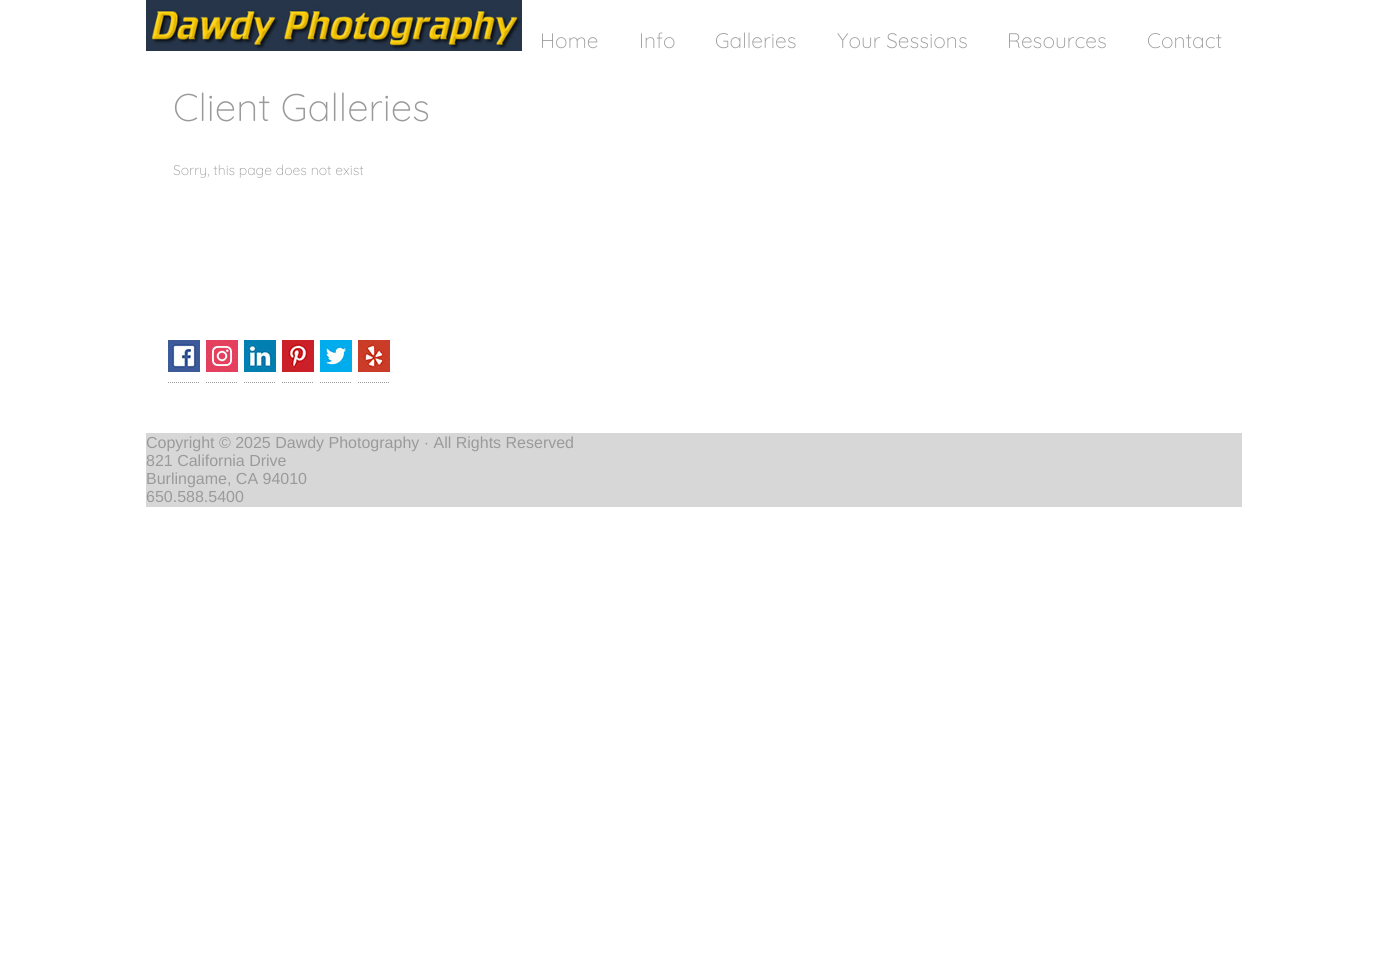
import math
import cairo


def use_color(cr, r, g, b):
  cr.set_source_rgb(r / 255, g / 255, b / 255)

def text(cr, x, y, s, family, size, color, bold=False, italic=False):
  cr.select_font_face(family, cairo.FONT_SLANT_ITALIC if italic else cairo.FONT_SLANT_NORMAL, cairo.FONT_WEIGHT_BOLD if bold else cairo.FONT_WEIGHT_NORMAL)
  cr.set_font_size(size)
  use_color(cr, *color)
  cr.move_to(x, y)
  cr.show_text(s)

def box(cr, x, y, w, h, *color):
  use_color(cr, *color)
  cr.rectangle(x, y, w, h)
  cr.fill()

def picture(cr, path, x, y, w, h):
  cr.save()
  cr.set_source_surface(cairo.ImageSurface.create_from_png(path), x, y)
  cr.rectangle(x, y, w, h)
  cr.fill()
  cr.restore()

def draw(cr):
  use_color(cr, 255, 255, 255)
  cr.paint()
  picture(cr, "img_01.png", 146, 0, 376, 51)
  cr.new_path()
  cr.move_to(168, 382.5)
  cr.line_to(200, 382.5)
  use_color(cr, 154, 154, 154)
  cr.set_line_width(1)
  cr.set_dash([1, 1])
  cr.stroke()
  picture(cr, "img_02.png", 168, 340, 32, 32)
  cr.new_path()
  cr.move_to(206, 382.5)
  cr.line_to(238, 382.5)
  cr.stroke()
  picture(cr, "img_03.png", 206, 340, 32, 32)
  cr.new_path()
  cr.move_to(244, 382.5)
  cr.line_to(276, 382.5)
  cr.stroke()
  picture(cr, "img_04.png", 244, 340, 32, 32)
  cr.new_path()
  cr.move_to(282, 382.5)
  cr.line_to(314, 382.5)
  cr.stroke()
  picture(cr, "img_05.png", 282, 340, 32, 32)
  cr.new_path()
  cr.move_to(320, 382.5)
  cr.line_to(352, 382.5)
  cr.stroke()
  picture(cr, "img_06.png", 320, 340, 32, 32)
  cr.new_path()
  cr.move_to(358, 382.5)
  cr.line_to(390, 382.5)
  cr.stroke()
  picture(cr, "img_07.png", 358, 340, 32, 32)
  box(cr, 146, 433, 1096, 74, 215, 215, 215)
  text(cr, 540, 48, "Home", "Quicksand Light", 21, (154, 154, 154))
  text(cr, 639, 48, "Info", "Quicksand Light", 21, (154, 154, 154))
  text(cr, 715, 48, "Galleries", "Quicksand Light", 21, (154, 154, 154))
  text(cr, 837, 48, "Your Sessions", "Quicksand Light", 21, (154, 154, 154))
  text(cr, 1007, 48, "Resources", "Quicksand Light", 21, (154, 154, 154))
  text(cr, 1147, 48, "Contact", "Quicksand Light", 21, (154, 154, 154))
  text(cr, 173, 121, "Client Galleries", "Quicksand Light", 38.5, (154, 154, 154))
  text(cr, 173, 175, "Sorry, this page does not exist", "Quicksand Light", 14, (154, 154, 154))
  text(cr, 146, 448, "Copyright © 2025 Dawdy Photography · All Rights Reserved", "Liberation Sans", 16, (154, 154, 154))
  text(cr, 146, 466, "821 California Drive", "Liberation Sans", 16, (154, 154, 154))
  text(cr, 146, 484, "Burlingame, CA 94010", "Liberation Sans", 16, (154, 154, 154))
  text(cr, 146, 502, "650.588.5400", "Liberation Sans", 16, (154, 154, 154))


surface = cairo.ImageSurface(cairo.FORMAT_RGB24, 1388, 966)
cr = cairo.Context(surface)
options = cairo.FontOptions()
options.set_hint_metrics(cairo.HINT_METRICS_OFF)
options.set_hint_style(cairo.HINT_STYLE_NONE)
cr.set_font_options(options)
cr.set_miter_limit(4)
draw(cr)
surface.write_to_png("out.png")
